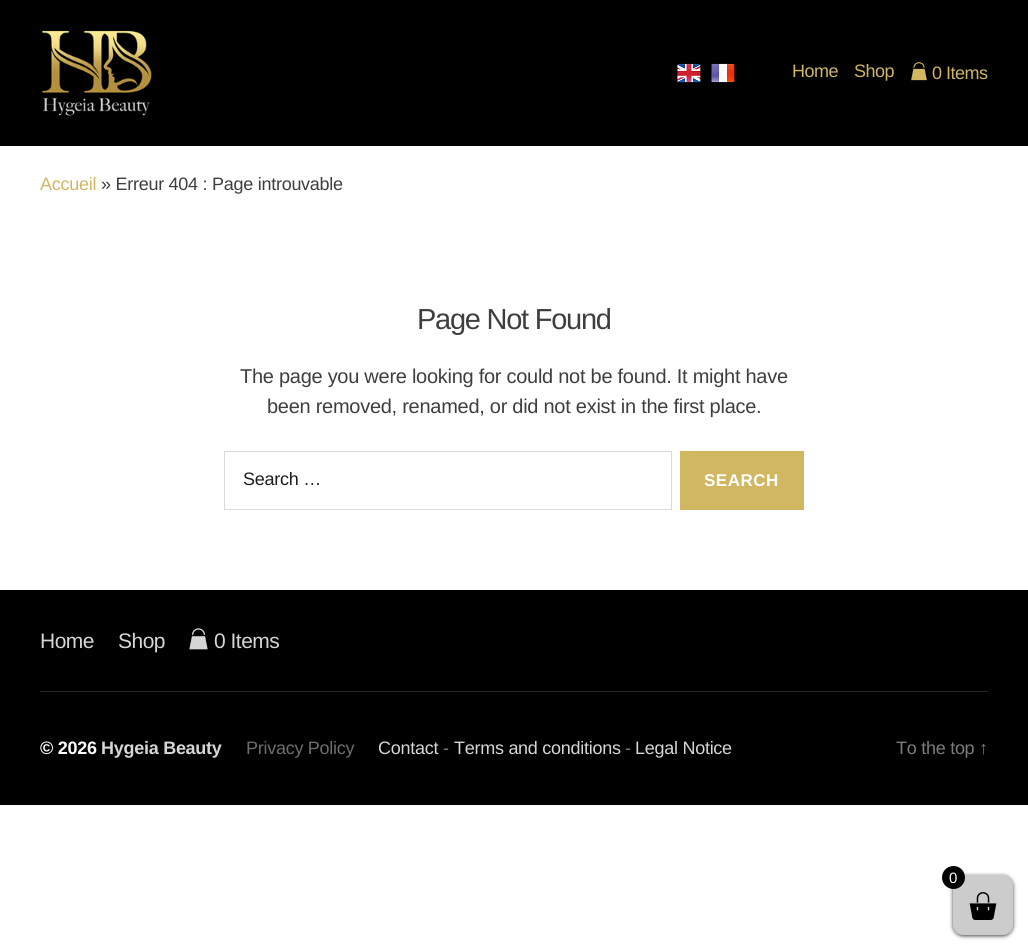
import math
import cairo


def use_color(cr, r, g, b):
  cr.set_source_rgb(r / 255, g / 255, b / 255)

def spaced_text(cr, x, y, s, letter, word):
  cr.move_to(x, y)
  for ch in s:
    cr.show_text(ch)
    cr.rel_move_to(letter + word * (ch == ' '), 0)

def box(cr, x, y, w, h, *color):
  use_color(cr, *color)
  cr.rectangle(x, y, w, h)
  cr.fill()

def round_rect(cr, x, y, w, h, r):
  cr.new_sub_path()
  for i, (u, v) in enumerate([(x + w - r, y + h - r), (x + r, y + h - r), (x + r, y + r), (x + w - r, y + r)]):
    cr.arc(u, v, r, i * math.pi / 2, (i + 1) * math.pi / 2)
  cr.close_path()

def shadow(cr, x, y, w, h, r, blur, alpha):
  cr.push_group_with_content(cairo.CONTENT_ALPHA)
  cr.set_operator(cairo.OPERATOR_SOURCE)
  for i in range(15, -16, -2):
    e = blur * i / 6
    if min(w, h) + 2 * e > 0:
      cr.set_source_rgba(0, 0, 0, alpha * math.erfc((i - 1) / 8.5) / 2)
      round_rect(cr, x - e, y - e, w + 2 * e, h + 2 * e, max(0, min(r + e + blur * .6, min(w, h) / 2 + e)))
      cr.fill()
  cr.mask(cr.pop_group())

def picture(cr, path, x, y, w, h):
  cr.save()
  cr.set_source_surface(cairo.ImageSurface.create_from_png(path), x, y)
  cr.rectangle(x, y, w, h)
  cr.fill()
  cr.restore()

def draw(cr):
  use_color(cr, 255, 255, 255)
  cr.paint()
  box(cr, 0, 0, 1028, 146, 0, 0, 0)
  picture(cr, "img_01.png", 42, 30, 110, 86)
  picture(cr, "img_02.png", 677, 63, 24, 20)
  picture(cr, "img_03.png", 711, 63, 24, 20)
  picture(cr, "img_04.png", 911, 62, 16, 19)
  cr.rectangle(224.5, 451.5, 447, 58)
  use_color(cr, 219, 219, 219)
  cr.set_line_width(1)
  cr.stroke()
  box(cr, 680, 451, 124, 59, 209, 183, 98)
  box(cr, 0, 590, 1028, 215, 0, 0, 0)
  box(cr, 40, 691, 948, 1, 38, 38, 38)
  picture(cr, "img_05.png", 189, 628, 19, 22)
  use_color(cr, 62, 62, 61)
  shadow(cr, 953, 876, 60, 60, 10, 2, 1)
  use_color(cr, 204, 204, 204)
  round_rect(cr, 953.5, 875.5, 59, 59, 9.5)
  cr.fill_preserve()
  cr.stroke()
  use_color(cr, 0, 0, 0)
  cr.arc(953.5, 877.5, 11.5, 0, 2 * math.pi)
  cr.fill()
  picture(cr, "img_06.png", 969, 892, 28, 28)
  cr.select_font_face("Liberation Sans")
  cr.set_font_size(18)
  use_color(cr, 209, 183, 98)
  spaced_text(cr, 792, 77, "Home", -0.5, 0)
  spaced_text(cr, 854, 77, "Shop", -0.5, 0)
  spaced_text(cr, 932, 79, "0 Items", -0.5, 0)
  spaced_text(cr, 40, 190, "Accueil", -0.27, 0)
  use_color(cr, 62, 62, 61)
  spaced_text(cr, 101, 190, "» Erreur 404 : Page introuvable", -0.27, 0)
  cr.set_font_size(29)
  spaced_text(cr, 417, 329, "Page Not Found", -1.25, 0)
  cr.set_font_size(20)
  spaced_text(cr, 240, 383, "The page you were looking for could not be found. It might have", -0.27, 0)
  spaced_text(cr, 267, 413, "been removed, renamed, or did not exist in the first place.", -0.27, 0)
  cr.set_font_size(18)
  use_color(cr, 30, 30, 30)
  spaced_text(cr, 243, 485, "Search …", -0.25, 0)
  cr.select_font_face("Liberation Sans", cairo.FONT_SLANT_NORMAL, cairo.FONT_WEIGHT_BOLD)
  cr.set_font_size(17)
  use_color(cr, 255, 255, 255)
  spaced_text(cr, 704, 486, "SEARCH", 0.5, 0)
  cr.select_font_face("Liberation Sans")
  cr.set_font_size(21)
  use_color(cr, 214, 214, 214)
  spaced_text(cr, 40, 648, "Home", -0.5, 0)
  spaced_text(cr, 118, 648, "Shop", -0.5, 0)
  spaced_text(cr, 214, 648, "0 Items", -0.5, 0)
  cr.select_font_face("Liberation Sans", cairo.FONT_SLANT_NORMAL, cairo.FONT_WEIGHT_BOLD)
  cr.set_font_size(18)
  use_color(cr, 255, 255, 255)
  spaced_text(cr, 40, 754, "© 2026", -0.27, 0)
  use_color(cr, 214, 214, 214)
  spaced_text(cr, 101, 754, "Hygeia Beauty", -0.27, 0)
  cr.select_font_face("Liberation Sans")
  use_color(cr, 109, 109, 109)
  spaced_text(cr, 246, 754, "Privacy Policy", -0.27, 0)
  use_color(cr, 214, 214, 214)
  spaced_text(cr, 378, 754, "Contact", -0.27, 0)
  use_color(cr, 124, 124, 124)
  spaced_text(cr, 443, 754, "-", -0.27, 0)
  use_color(cr, 214, 214, 214)
  spaced_text(cr, 454, 754, "Terms and conditions", -0.27, 0)
  use_color(cr, 124, 124, 124)
  spaced_text(cr, 625, 754, "-", -0.27, 0)
  use_color(cr, 214, 214, 214)
  spaced_text(cr, 635, 754, "Legal Notice", -0.27, 0)
  use_color(cr, 124, 124, 124)
  spaced_text(cr, 896, 754, "To the top ↑", -0.27, 0)
  cr.set_font_size(15)
  use_color(cr, 255, 255, 255)
  spaced_text(cr, 949, 883, "0", -0.27, 0)


surface = cairo.ImageSurface(cairo.FORMAT_RGB24, 1028, 950)
cr = cairo.Context(surface)
options = cairo.FontOptions()
options.set_hint_metrics(cairo.HINT_METRICS_OFF)
options.set_hint_style(cairo.HINT_STYLE_NONE)
cr.set_font_options(options)
cr.set_miter_limit(4)
draw(cr)
surface.write_to_png("out.png")
